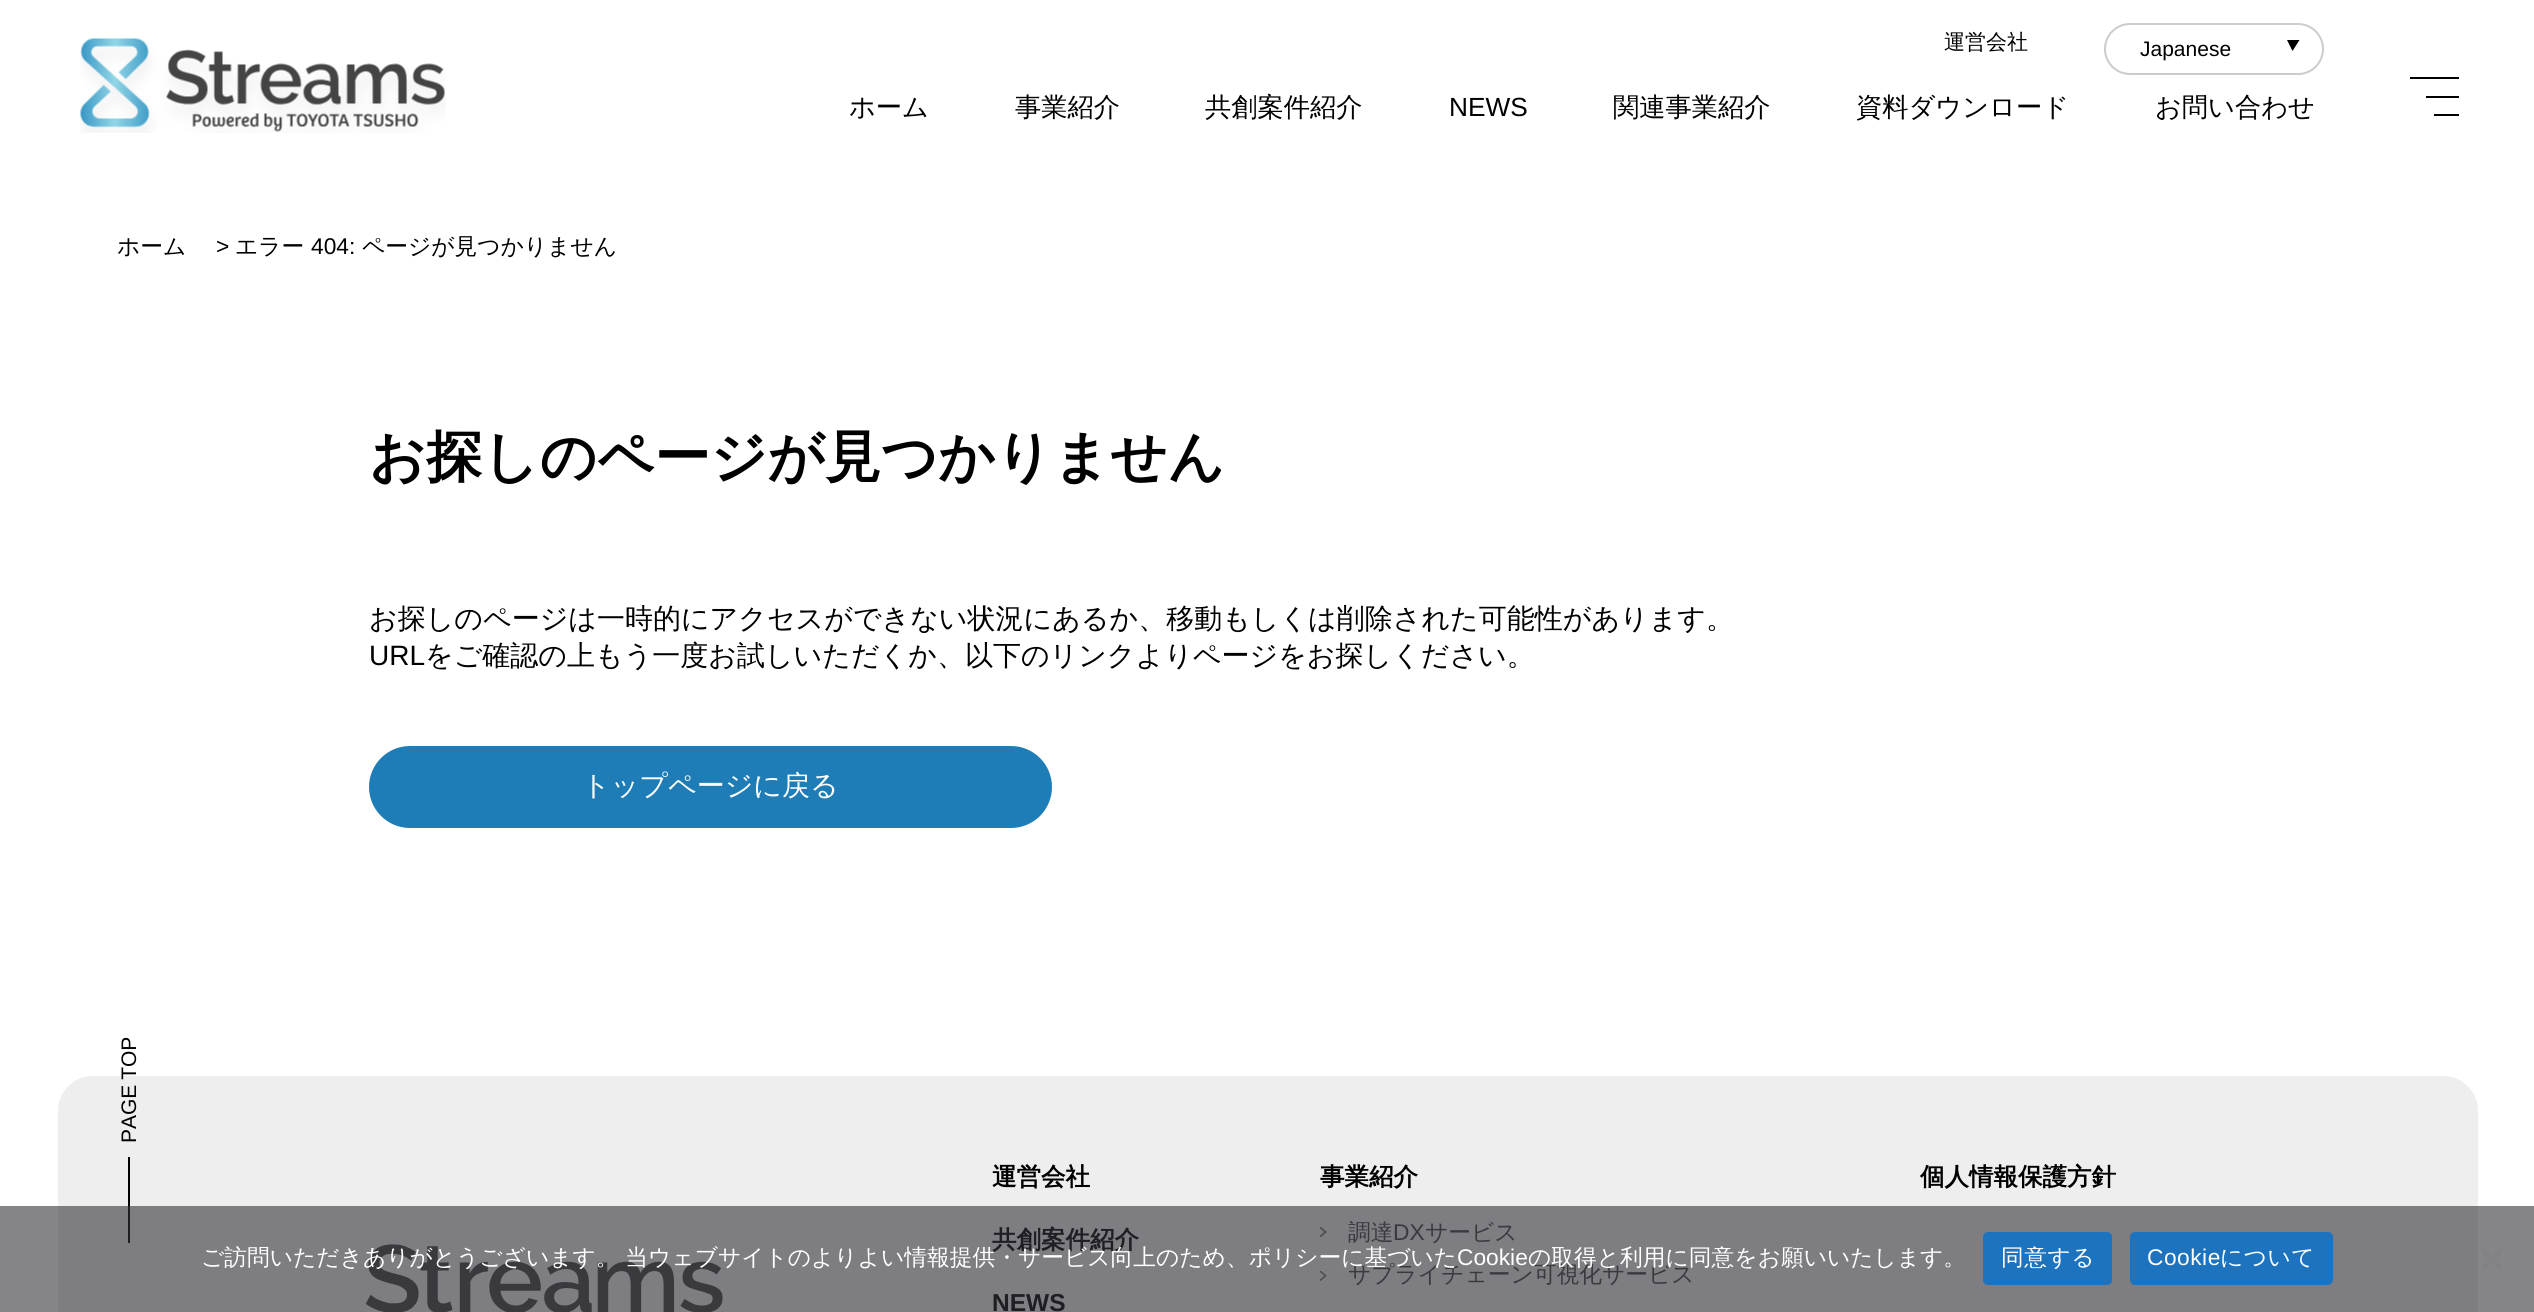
import math
import cairo


def use_color(cr, r, g, b):
  cr.set_source_rgb(r / 255, g / 255, b / 255)

def text(cr, x, y, s, family, size, color, bold=False, italic=False):
  cr.select_font_face(family, cairo.FONT_SLANT_ITALIC if italic else cairo.FONT_SLANT_NORMAL, cairo.FONT_WEIGHT_BOLD if bold else cairo.FONT_WEIGHT_NORMAL)
  cr.set_font_size(size)
  use_color(cr, *color)
  cr.move_to(x, y)
  cr.show_text(s)

def spaced_text(cr, x, y, s, letter, word):
  cr.move_to(x, y)
  for ch in s:
    cr.show_text(ch)
    cr.rel_move_to(letter + word * (ch == ' '), 0)

def box(cr, x, y, w, h, *color):
  use_color(cr, *color)
  cr.rectangle(x, y, w, h)
  cr.fill()

def round_rect(cr, x, y, w, h, r):
  cr.new_sub_path()
  for i, (u, v) in enumerate([(x + w - r, y + h - r), (x + r, y + h - r), (x + r, y + r), (x + w - r, y + r)]):
    cr.arc(u, v, r, i * math.pi / 2, (i + 1) * math.pi / 2)
  cr.close_path()

def picture(cr, path, x, y, w, h):
  cr.save()
  cr.set_source_surface(cairo.ImageSurface.create_from_png(path), x, y)
  cr.rectangle(x, y, w, h)
  cr.fill()
  cr.restore()

def draw(cr):
  use_color(cr, 255, 255, 255)
  cr.paint()
  box(cr, 0, 1206, 2534, 106, 132, 132, 137)
  picture(cr, "img_01.png", 80, 38, 366, 95)
  round_rect(cr, 2105, 24, 218, 50, 25)
  use_color(cr, 204, 204, 204)
  cr.stroke()
  use_color(cr, 0, 0, 0)
  cr.new_path()
  cr.move_to(2287, 40)
  cr.line_to(2299.5, 40)
  cr.line_to(2292.5, 51)
  cr.close_path()
  cr.fill()
  box(cr, 2410, 77, 49, 2, 0, 0, 0)
  box(cr, 2426, 96, 33, 2, 0, 0, 0)
  box(cr, 2434, 114, 25, 2, 0, 0, 0)
  use_color(cr, 30, 125, 182)
  round_rect(cr, 370, 747, 681, 80, 40)
  cr.fill_preserve()
  cr.stroke()
  use_color(cr, 238, 238, 238)
  cr.new_path()
  cr.move_to(93, 1076)
  cr.line_to(2443, 1076)
  cr.curve_to(2462.5, 1076, 2478, 1091.5, 2478, 1111)
  cr.line_to(2478, 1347)
  cr.line_to(58, 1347)
  cr.line_to(58, 1111)
  cr.curve_to(58, 1091.5, 73.5, 1076, 93, 1076)
  cr.close_path()
  cr.fill()
  box(cr, 58, 1206, 2420, 106, 125, 125, 130)
  box(cr, 128, 1157, 2, 49, 0, 0, 0)
  box(cr, 128, 1206, 2, 37, 30, 30, 35)
  picture(cr, "img_02.png", 366, 1244, 357, 68)
  picture(cr, "img_03.png", 1320, 1227, 7, 10)
  picture(cr, "img_04.png", 1320, 1271, 7, 10)
  use_color(cr, 30, 115, 190)
  round_rect(cr, 1983, 1232, 129, 53, 5)
  cr.fill()
  round_rect(cr, 2130, 1232, 203, 53, 5)
  cr.fill()
  use_color(cr, 130, 130, 132)
  cr.new_path()
  cr.move_to(2500, 1249)
  cr.line_to(2502.5, 1251.5)
  cr.line_to(2484, 1270)
  cr.line_to(2481.5, 1267.5)
  cr.close_path()
  cr.fill()
  cr.new_path()
  cr.move_to(2481.5, 1251.5)
  cr.line_to(2484, 1249)
  cr.line_to(2502.5, 1267.5)
  cr.line_to(2500, 1270)
  cr.close_path()
  cr.fill()
  text(cr, 1944, 49, "運営会社", "WenQuanYi Zen Hei Medium", 21, (0, 0, 0))
  text(cr, 2140, 56, "Japanese", "Liberation Sans", 21, (0, 0, 0))
  text(cr, 849, 116, "ホーム", "WenQuanYi Zen Hei Medium", 26.25, (0, 0, 0))
  text(cr, 1015, 116, "事業紹介", "WenQuanYi Zen Hei Medium", 26.25, (0, 0, 0))
  text(cr, 1205, 116, "共創案件紹介", "WenQuanYi Zen Hei Medium", 26.25, (0, 0, 0))
  text(cr, 1449, 116, "NEWS", "Liberation Sans", 26.25, (0, 0, 0))
  text(cr, 1613, 116, "関連事業紹介", "WenQuanYi Zen Hei Medium", 26.25, (0, 0, 0))
  text(cr, 1856, 116, "資料ダウンロード", "WenQuanYi Zen Hei Medium", 26.25, (0, 0, 0))
  text(cr, 2155, 116, "お問い合わせ", "WenQuanYi Zen Hei Medium", 26.25, (0, 0, 0))
  text(cr, 117, 254, "ホーム", "WenQuanYi Zen Hei Medium", 22.75, (0, 0, 0))
  text(cr, 216, 254, ">", "Liberation Sans", 22.75, (0, 0, 0))
  text(cr, 235, 254, "エラー", "WenQuanYi Zen Hei Medium", 22.75, (0, 0, 0))
  text(cr, 311, 254, "404:", "Liberation Sans", 22.75, (0, 0, 0))
  text(cr, 362, 254, "ページが見つかりません", "WenQuanYi Zen Hei Medium", 22.75, (0, 0, 0))
  text(cr, 369, 476, "お探しのページが見つかりません", "WenQuanYi Zen Hei", 56, (0, 0, 0), bold=True)
  text(cr, 369, 628, "お探しのページは一時的にアクセスができない状況にあるか、移動もしくは削除された可能性があります。", "WenQuanYi Zen Hei Medium", 28, (0, 0, 0))
  text(cr, 369, 665, "URL", "Liberation Sans", 28, (0, 0, 0))
  text(cr, 425, 665, "をご確認の上もう一度お試しいただくか、以下のリンクよりページをお探しください。", "WenQuanYi Zen Hei Medium", 28, (0, 0, 0))
  text(cr, 582, 795, "トップページに戻る", "WenQuanYi Zen Hei Medium", 28, (255, 255, 255))
  cr.select_font_face("Liberation Sans")
  cr.set_font_size(21)
  use_color(cr, 0, 0, 0)
  cr.save()
  cr.translate(136, 1143)
  cr.rotate(-90 * math.pi / 180)
  spaced_text(cr, 0, 0, "PAGE TOP", 0, -1)
  cr.restore()
  text(cr, 992, 1185, "運営会社", "WenQuanYi Zen Hei", 24.5, (0, 0, 0), bold=True)
  text(cr, 1320, 1185, "事業紹介", "WenQuanYi Zen Hei", 24.5, (0, 0, 0), bold=True)
  text(cr, 1348, 1240, "調達", "WenQuanYi Zen Hei Medium", 22.75, (57, 57, 62))
  text(cr, 1393, 1240, "DX", "Liberation Sans", 22.75, (57, 57, 62))
  text(cr, 1425, 1240, "サービス", "WenQuanYi Zen Hei Medium", 22.75, (57, 57, 62))
  text(cr, 1348, 1282, "サプライチェーン可視化サービス", "WenQuanYi Zen Hei Medium", 22.75, (57, 57, 62))
  text(cr, 1920, 1185, "個人情報保護方針", "WenQuanYi Zen Hei", 24.5, (0, 0, 0), bold=True)
  text(cr, 992, 1248, "共創案件紹介", "WenQuanYi Zen Hei", 24.5, (30, 30, 35), bold=True)
  text(cr, 992, 1311, "NEWS", "Liberation Sans", 24.5, (30, 30, 35), bold=True)
  text(cr, 201, 1265, "ご訪問いただきありがとうございます。 当ウェブサイトのよりよい情報提供・サービス向上のため、ポリシーに基づいた", "WenQuanYi Zen Hei Medium", 22.75, (255, 255, 255))
  text(cr, 1457, 1265, "Cookie", "Liberation Sans", 22.75, (255, 255, 255))
  text(cr, 1528, 1265, "の取得と利用に同意をお願いいたします。", "WenQuanYi Zen Hei Medium", 22.75, (255, 255, 255))
  spaced_text(cr, 2001, 1265, "同意する", 0.5, 0)
  cr.select_font_face("Liberation Sans")
  spaced_text(cr, 2147, 1265, "Cookie", 0.5, 0)
  cr.select_font_face("WenQuanYi Zen Hei Medium")
  spaced_text(cr, 2220, 1265, "について", 0.5, 0)


surface = cairo.ImageSurface(cairo.FORMAT_RGB24, 2534, 1312)
cr = cairo.Context(surface)
options = cairo.FontOptions()
options.set_hint_metrics(cairo.HINT_METRICS_OFF)
options.set_hint_style(cairo.HINT_STYLE_NONE)
cr.set_font_options(options)
cr.set_miter_limit(4)
draw(cr)
surface.write_to_png("out.png")
